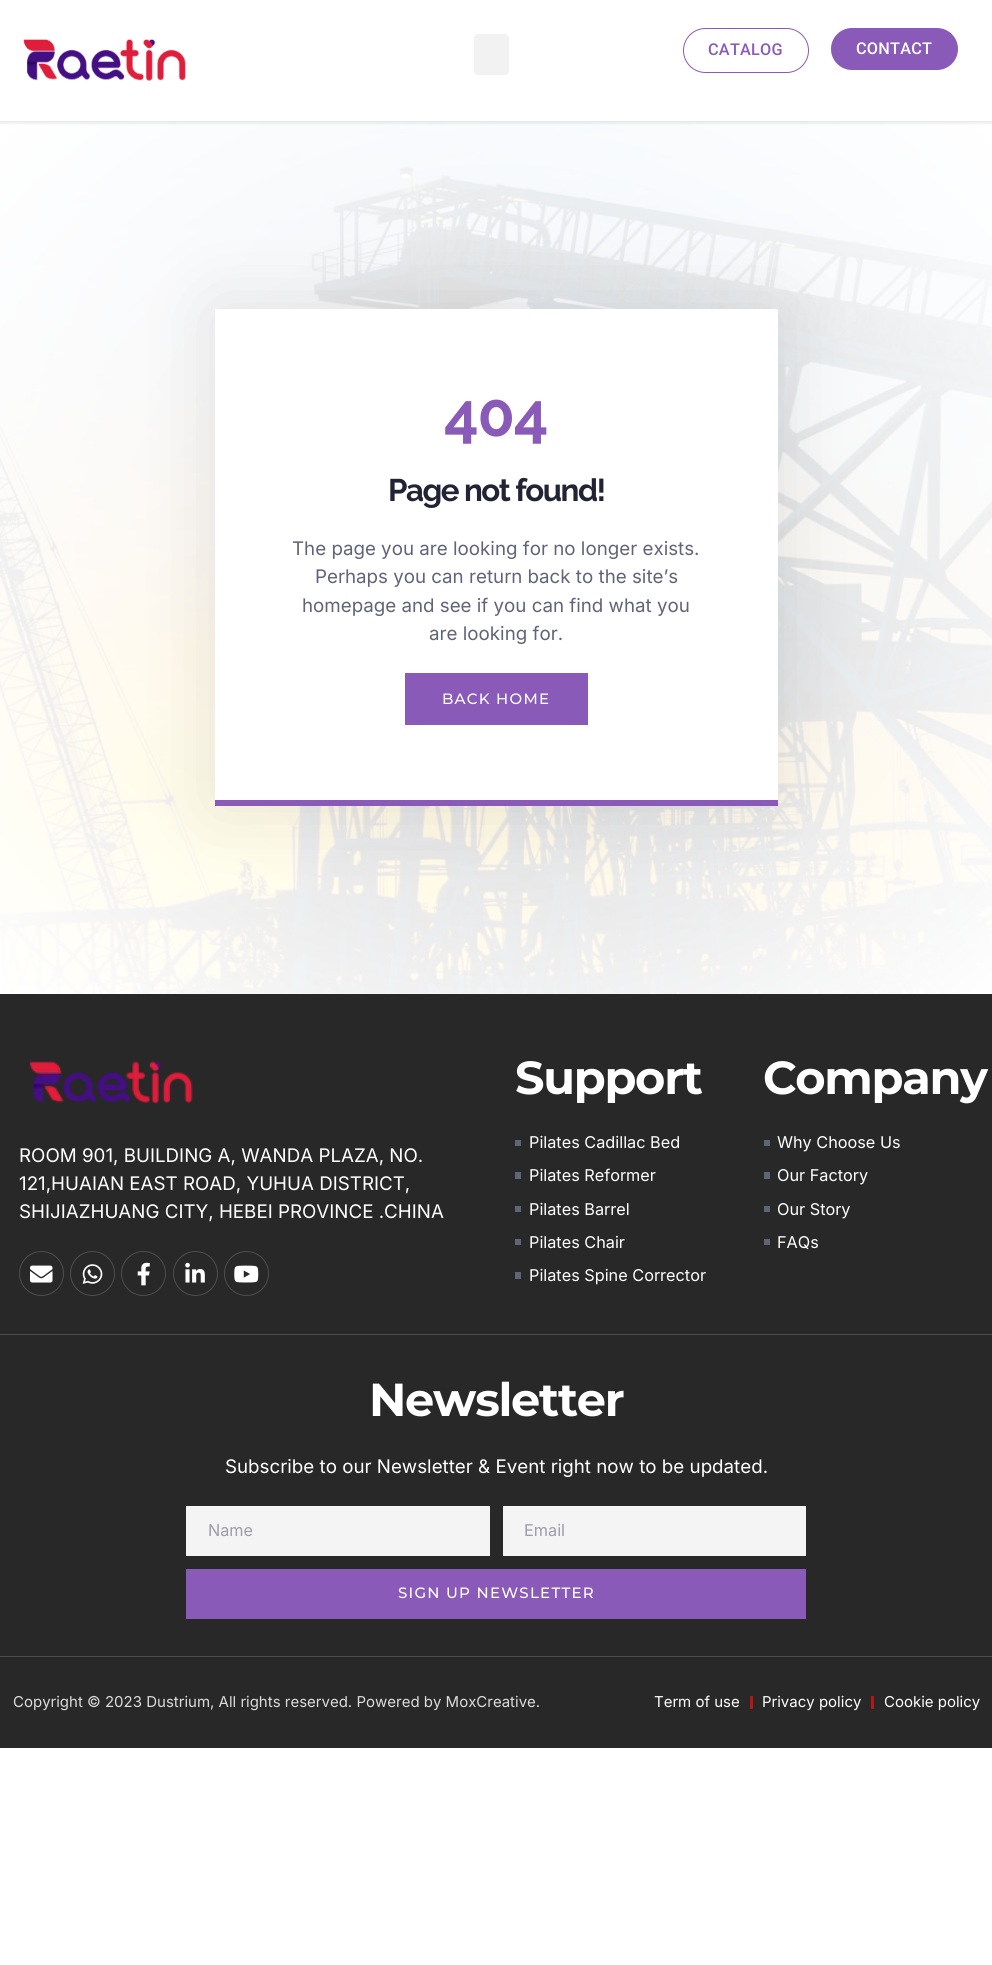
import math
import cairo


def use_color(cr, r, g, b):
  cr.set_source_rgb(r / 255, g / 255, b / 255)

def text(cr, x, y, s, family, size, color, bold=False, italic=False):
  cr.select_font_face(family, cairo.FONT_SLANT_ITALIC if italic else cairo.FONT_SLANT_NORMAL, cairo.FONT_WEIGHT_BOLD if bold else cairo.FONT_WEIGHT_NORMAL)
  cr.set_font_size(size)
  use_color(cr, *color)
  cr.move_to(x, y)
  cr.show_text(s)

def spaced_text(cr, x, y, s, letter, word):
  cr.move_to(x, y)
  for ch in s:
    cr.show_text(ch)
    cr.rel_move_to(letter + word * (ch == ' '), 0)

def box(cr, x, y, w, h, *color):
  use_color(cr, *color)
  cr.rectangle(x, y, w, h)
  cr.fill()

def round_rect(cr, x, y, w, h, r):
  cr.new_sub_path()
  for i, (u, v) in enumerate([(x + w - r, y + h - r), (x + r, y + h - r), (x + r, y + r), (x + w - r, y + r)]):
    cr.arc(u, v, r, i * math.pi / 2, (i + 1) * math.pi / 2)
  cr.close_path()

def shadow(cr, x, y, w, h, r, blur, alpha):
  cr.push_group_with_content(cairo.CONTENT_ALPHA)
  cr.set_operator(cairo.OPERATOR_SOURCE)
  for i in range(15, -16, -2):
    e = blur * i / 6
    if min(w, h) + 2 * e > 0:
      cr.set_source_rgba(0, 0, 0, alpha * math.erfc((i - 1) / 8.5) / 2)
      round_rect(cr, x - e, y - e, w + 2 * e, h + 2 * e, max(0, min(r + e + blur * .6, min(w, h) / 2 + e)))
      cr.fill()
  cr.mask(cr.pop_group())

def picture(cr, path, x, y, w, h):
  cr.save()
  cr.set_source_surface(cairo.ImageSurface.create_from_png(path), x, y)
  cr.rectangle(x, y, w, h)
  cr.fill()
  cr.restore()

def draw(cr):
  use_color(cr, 255, 255, 255)
  cr.paint()
  picture(cr, "img_02.png", 0, 121, 992, 873)
  gradient = cairo.RadialGradient(0, 0, 0, 0, 0, 1)
  gradient.set_matrix(cairo.Matrix(1 / 702, 0, 0, 1 / 617, -1 * 496 / 702, -1 * 558 / 617))
  gradient.add_color_stop_rgba(0, 1, 1, 1, 0.8)
  gradient.add_color_stop_rgba(1, 1, 1, 1, 1)
  cr.set_source(gradient)
  cr.rectangle(0, 121, 992, 873)
  cr.fill()
  cr.save()
  cr.rectangle(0, 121, 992, 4)
  cr.clip()
  use_color(cr, 0, 0, 0)
  shadow(cr, 0, 1, 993, 122, 0, 2, 0.1)
  cr.restore()
  picture(cr, "img_01.png", 23, 39, 163, 42)
  use_color(cr, 242, 242, 242)
  round_rect(cr, 474, 34, 35, 41, 4)
  cr.fill()
  round_rect(cr, 683.5, 28.5, 125, 44, 22)
  use_color(cr, 137, 90, 183)
  cr.set_line_width(1)
  cr.stroke()
  round_rect(cr, 831, 28, 127, 42, 21)
  cr.fill()
  use_color(cr, 0, 0, 0)
  shadow(cr, 215, 309, 563, 497, 0, 37.5, 0.1)
  box(cr, 215, 309, 563, 491, 255, 255, 255)
  box(cr, 215, 800, 563, 6, 137, 90, 183)
  box(cr, 405, 673, 183, 52, 137, 90, 183)
  box(cr, 0, 994, 992, 754, 40, 40, 40)
  box(cr, 0, 1334, 992, 1, 77, 77, 77)
  picture(cr, "img_03.png", 29, 1061, 164, 43)
  cr.arc(41.5, 1273.5, 22, 0, 2 * math.pi)
  cr.stroke()
  picture(cr, "img_04.png", 30, 1265, 23, 18)
  cr.arc(92.5, 1273.5, 22, 0, 2 * math.pi)
  cr.stroke()
  picture(cr, "img_05.png", 82, 1264, 21, 20)
  cr.arc(143.5, 1273.5, 22, 0, 2 * math.pi)
  cr.stroke()
  picture(cr, "img_06.png", 137, 1262, 13, 24)
  cr.arc(195.5, 1273.5, 22, 0, 2 * math.pi)
  cr.stroke()
  picture(cr, "img_07.png", 185, 1262, 20, 21)
  cr.arc(246.5, 1273.5, 22, 0, 2 * math.pi)
  cr.stroke()
  picture(cr, "img_08.png", 234, 1265, 25, 18)
  box(cr, 515, 1140, 6, 6, 97, 99, 121)
  box(cr, 515, 1172, 6, 7, 97, 99, 121)
  box(cr, 515, 1206, 6, 6, 97, 99, 121)
  box(cr, 515, 1239, 6, 6, 97, 99, 121)
  box(cr, 515, 1272, 6, 7, 97, 99, 121)
  box(cr, 764, 1140, 6, 6, 97, 99, 121)
  box(cr, 764, 1172, 6, 7, 97, 99, 121)
  box(cr, 764, 1206, 6, 6, 97, 99, 121)
  box(cr, 764, 1239, 6, 6, 97, 99, 121)
  box(cr, 186, 1506, 304, 50, 245, 244, 245)
  box(cr, 503, 1506, 303, 50, 245, 244, 245)
  box(cr, 186, 1569, 620, 50, 137, 90, 183)
  box(cr, 0, 1656, 992, 1, 77, 77, 77)
  box(cr, 750, 1696, 3, 13, 181, 23, 23)
  box(cr, 871, 1696, 3, 13, 181, 23, 23)
  cr.select_font_face("Roboto Medium")
  cr.set_font_size(16.25)
  use_color(cr, 137, 90, 183)
  spaced_text(cr, 708, 55, "CATALOG", 0.25, 0)
  use_color(cr, 255, 255, 255)
  spaced_text(cr, 856, 54, "CONTACT", 0.25, 0)
  cr.select_font_face("Raleway", cairo.FONT_SLANT_NORMAL, cairo.FONT_WEIGHT_BOLD)
  cr.set_font_size(61)
  use_color(cr, 137, 90, 183)
  spaced_text(cr, 444, 436, "404", -1.25, 0)
  cr.set_font_size(31.25)
  use_color(cr, 34, 35, 52)
  spaced_text(cr, 388, 501, "Page not found!", -1.5, 0)
  text(cr, 292, 555, "The page you are looking for no longer exists.", "Inter", 18.75, (97, 99, 121))
  text(cr, 315, 583, "Perhaps you can return back to the site’s", "Inter", 18.75, (97, 99, 121))
  text(cr, 302, 612, "homepage and see if you can find what you", "Inter", 18.75, (97, 99, 121))
  text(cr, 429, 640, "are looking for.", "Inter", 18.75, (97, 99, 121))
  cr.select_font_face("Montserrat Medium")
  cr.set_font_size(15)
  use_color(cr, 255, 255, 255)
  spaced_text(cr, 442, 704, "BACK HOME", 1.25, 0)
  text(cr, 19, 1162, "ROOM 901, BUILDING A, WANDA PLAZA, NO.", "Inter", 18.75, (255, 255, 255))
  text(cr, 19, 1190, "121,HUAIAN EAST ROAD, YUHUA DISTRICT,", "Inter", 18.75, (255, 255, 255))
  text(cr, 19, 1218, "SHIJIAZHUANG CITY, HEBEI PROVINCE .CHINA", "Inter", 18.75, (255, 255, 255))
  cr.select_font_face("Montserrat", cairo.FONT_SLANT_NORMAL, cairo.FONT_WEIGHT_BOLD)
  cr.set_font_size(46.25)
  spaced_text(cr, 515, 1094, "Support", -1.25, 0)
  text(cr, 529, 1148, "Pilates Cadillac Bed", "Inter", 16.25, (255, 255, 255))
  text(cr, 529, 1181, "Pilates Reformer", "Inter", 16.25, (255, 255, 255))
  text(cr, 529, 1215, "Pilates Barrel", "Inter", 16.25, (255, 255, 255))
  text(cr, 529, 1248, "Pilates Chair", "Inter", 16.25, (255, 255, 255))
  text(cr, 529, 1281, "Pilates Spine Corrector", "Inter", 16.25, (255, 255, 255))
  cr.select_font_face("Montserrat", cairo.FONT_SLANT_NORMAL, cairo.FONT_WEIGHT_BOLD)
  cr.set_font_size(46.25)
  spaced_text(cr, 763, 1094, "Company", -1.25, 0)
  text(cr, 777, 1148, "Why Choose Us", "Inter", 16.25, (255, 255, 255))
  text(cr, 777, 1181, "Our Factory", "Inter", 16.25, (255, 255, 255))
  text(cr, 777, 1215, "Our Story", "Inter", 16.25, (255, 255, 255))
  text(cr, 777, 1248, "FAQs", "Inter", 16.25, (255, 255, 255))
  cr.select_font_face("Montserrat", cairo.FONT_SLANT_NORMAL, cairo.FONT_WEIGHT_BOLD)
  cr.set_font_size(46.25)
  spaced_text(cr, 369, 1416, "Newsletter", -1.25, 0)
  text(cr, 225, 1473, "Subscribe to our Newsletter & Event right now to be updated.", "Inter", 18.75, (255, 255, 255))
  text(cr, 208, 1536, "Name", "Inter", 16.25, (156, 157, 171))
  text(cr, 524, 1536, "Email", "Inter", 16.25, (156, 157, 171))
  cr.select_font_face("Montserrat Medium")
  cr.set_font_size(15)
  use_color(cr, 255, 255, 255)
  spaced_text(cr, 398, 1598, "SIGN UP NEWSLETTER", 1.25, 0)
  text(cr, 13, 1707, "Copyright © 2023 Dustrium, All rights reserved. Powered by MoxCreative.", "Inter", 15, (220, 220, 222))
  text(cr, 654, 1707, "Term of use", "Inter", 15, (255, 255, 255))
  text(cr, 762, 1707, "Privacy policy", "Inter", 15, (255, 255, 255))
  text(cr, 884, 1707, "Cookie policy", "Inter", 15, (255, 255, 255))


surface = cairo.ImageSurface(cairo.FORMAT_RGB24, 992, 1965)
cr = cairo.Context(surface)
options = cairo.FontOptions()
options.set_hint_metrics(cairo.HINT_METRICS_OFF)
options.set_hint_style(cairo.HINT_STYLE_NONE)
cr.set_font_options(options)
cr.set_miter_limit(4)
draw(cr)
surface.write_to_png("out.png")
